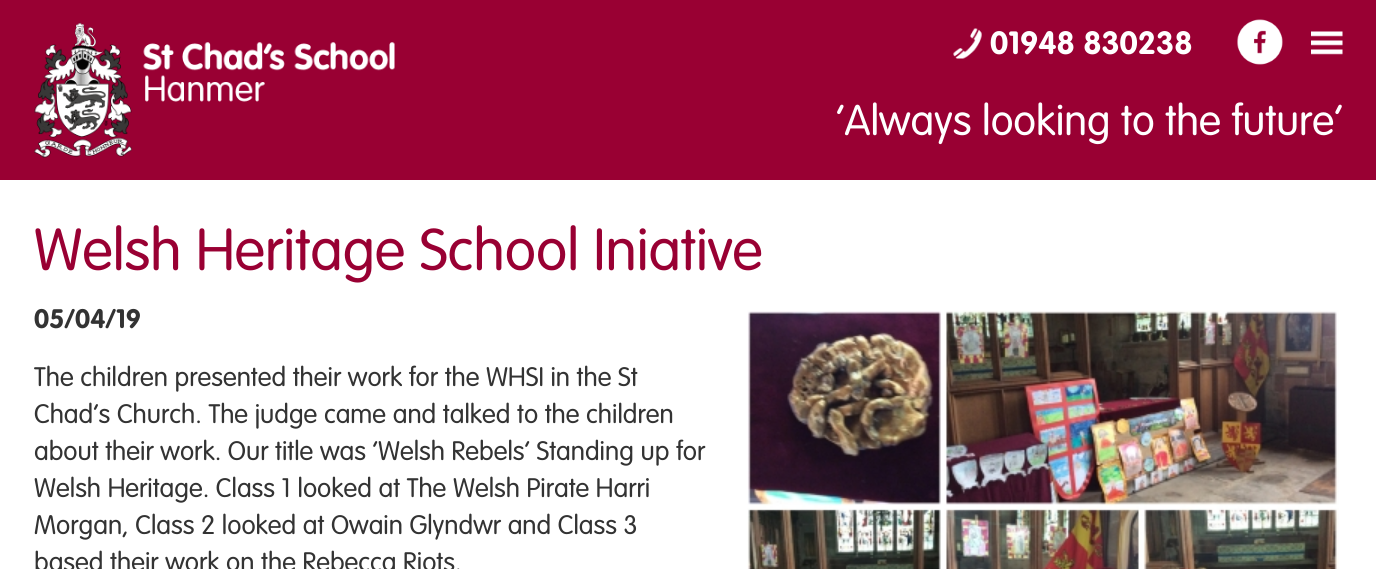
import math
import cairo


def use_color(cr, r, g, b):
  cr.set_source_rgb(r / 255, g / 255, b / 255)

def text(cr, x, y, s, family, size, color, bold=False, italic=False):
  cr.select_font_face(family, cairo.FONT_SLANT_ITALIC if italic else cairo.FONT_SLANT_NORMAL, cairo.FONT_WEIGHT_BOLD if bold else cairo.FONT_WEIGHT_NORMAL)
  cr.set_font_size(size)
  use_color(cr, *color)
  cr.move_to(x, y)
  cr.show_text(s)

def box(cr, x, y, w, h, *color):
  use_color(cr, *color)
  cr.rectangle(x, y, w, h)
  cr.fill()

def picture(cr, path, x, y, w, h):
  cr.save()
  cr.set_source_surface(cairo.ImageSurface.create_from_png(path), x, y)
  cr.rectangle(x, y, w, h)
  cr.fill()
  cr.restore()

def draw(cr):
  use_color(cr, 255, 255, 255)
  cr.paint()
  box(cr, 0, 0, 1376, 180, 153, 0, 51)
  picture(cr, "img_01.png", 34, 22, 361, 136)
  picture(cr, "img_02.png", 953, 28, 29, 31)
  picture(cr, "img_03.png", 1237, 19, 46, 46)
  picture(cr, "img_04.png", 1311, 31, 32, 24)
  picture(cr, "img_05.png", 747, 310, 592, 259)
  text(cr, 990, 54, "01948 830238", "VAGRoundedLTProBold", 31.75, (255, 255, 255))
  text(cr, 836, 135, "‘Always looking to the future’", "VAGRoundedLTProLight", 42.25, (255, 255, 255))
  text(cr, 34, 270, "Welsh Heritage School Iniative", "VAGRoundedLTProLight", 58.1, (153, 0, 51))
  text(cr, 34, 328, "05/04/19", "VAGRoundedLTProBold", 26.4, (51, 51, 51))
  text(cr, 34, 386, "The children presented their work for the WHSI in the St", "VAGRoundedLTProLight", 26.4, (51, 51, 51))
  text(cr, 34, 423, "Chad’s Church. The judge came and talked to the children", "VAGRoundedLTProLight", 26.4, (51, 51, 51))
  text(cr, 34, 460, "about their work. Our title was ‘Welsh Rebels’ Standing up for", "VAGRoundedLTProLight", 26.4, (51, 51, 51))
  text(cr, 34, 497, "Welsh Heritage. Class 1 looked at The Welsh Pirate Harri", "VAGRoundedLTProLight", 26.4, (51, 51, 51))
  text(cr, 34, 534, "Morgan, Class 2 looked at Owain Glyndwr and Class 3", "VAGRoundedLTProLight", 26.4, (51, 51, 51))
  text(cr, 34, 571, "based their work on the Rebecca Riots.", "VAGRoundedLTProLight", 26.4, (51, 51, 51))


surface = cairo.ImageSurface(cairo.FORMAT_RGB24, 1376, 569)
cr = cairo.Context(surface)
options = cairo.FontOptions()
options.set_hint_metrics(cairo.HINT_METRICS_OFF)
options.set_hint_style(cairo.HINT_STYLE_NONE)
cr.set_font_options(options)
cr.set_miter_limit(4)
draw(cr)
surface.write_to_png("out.png")
